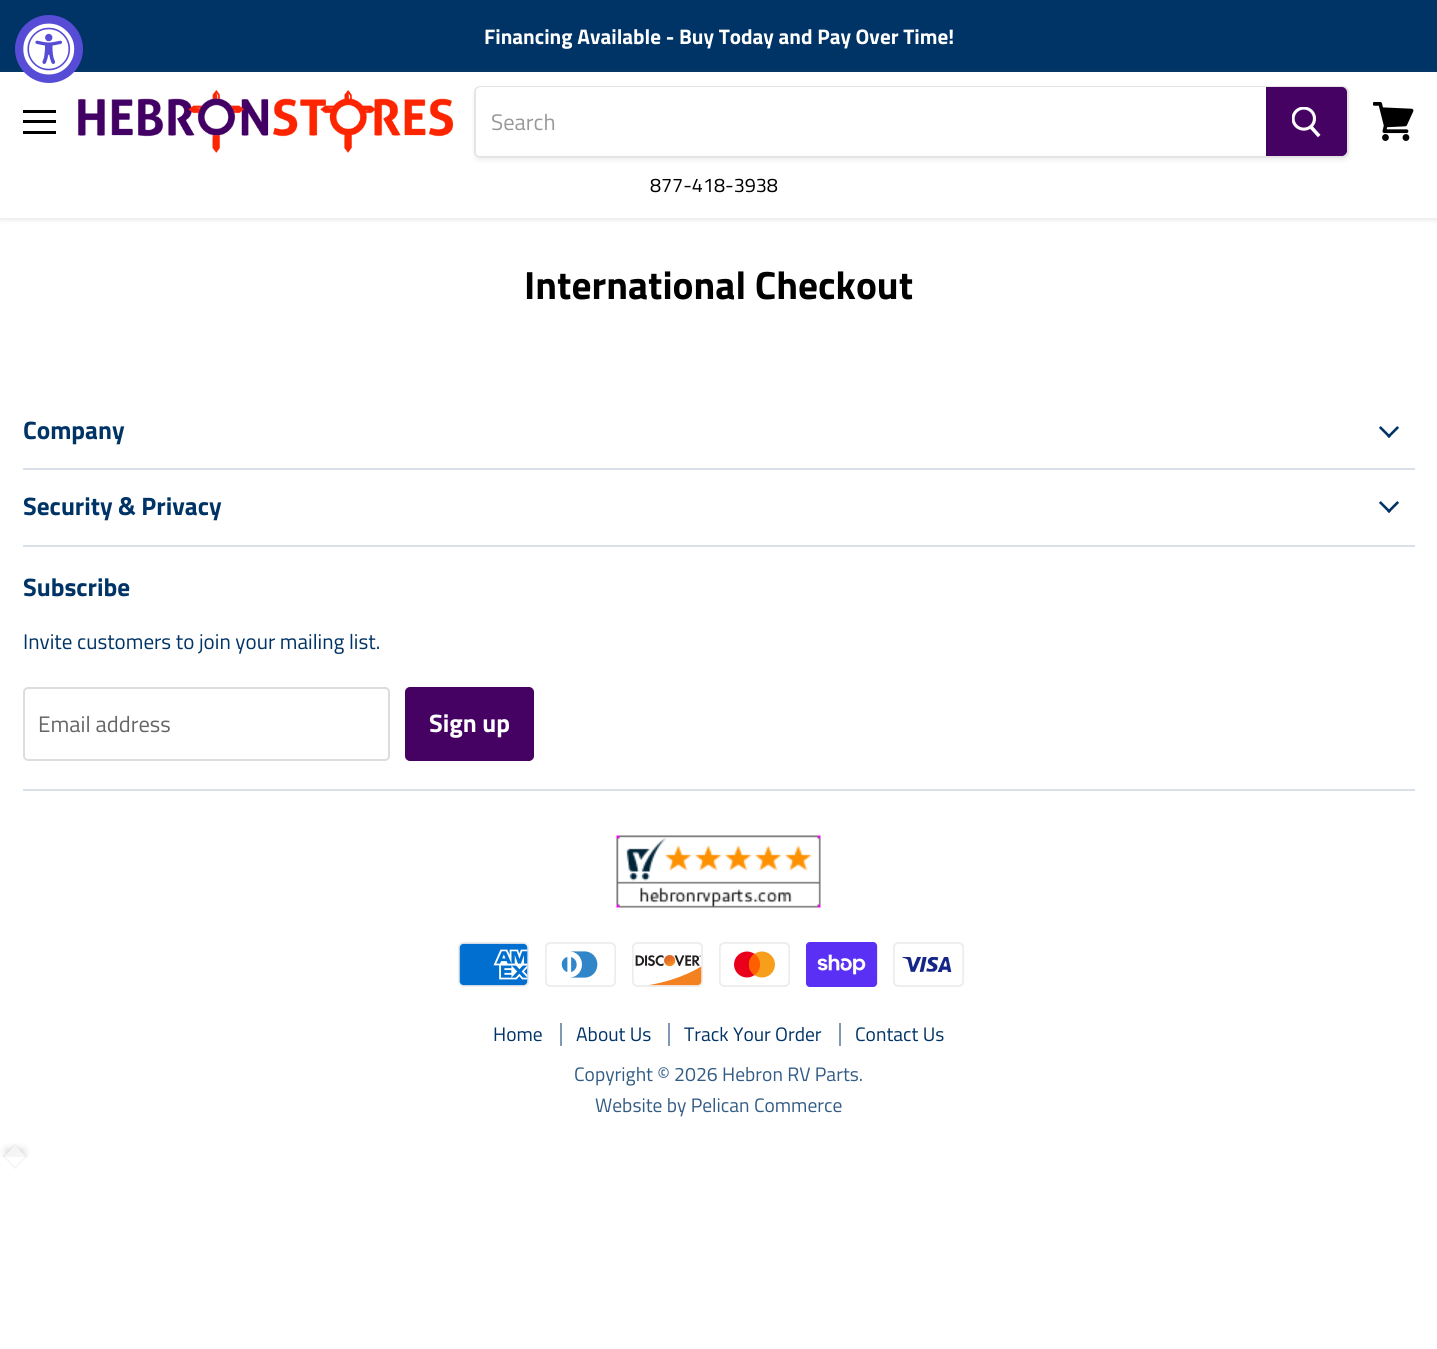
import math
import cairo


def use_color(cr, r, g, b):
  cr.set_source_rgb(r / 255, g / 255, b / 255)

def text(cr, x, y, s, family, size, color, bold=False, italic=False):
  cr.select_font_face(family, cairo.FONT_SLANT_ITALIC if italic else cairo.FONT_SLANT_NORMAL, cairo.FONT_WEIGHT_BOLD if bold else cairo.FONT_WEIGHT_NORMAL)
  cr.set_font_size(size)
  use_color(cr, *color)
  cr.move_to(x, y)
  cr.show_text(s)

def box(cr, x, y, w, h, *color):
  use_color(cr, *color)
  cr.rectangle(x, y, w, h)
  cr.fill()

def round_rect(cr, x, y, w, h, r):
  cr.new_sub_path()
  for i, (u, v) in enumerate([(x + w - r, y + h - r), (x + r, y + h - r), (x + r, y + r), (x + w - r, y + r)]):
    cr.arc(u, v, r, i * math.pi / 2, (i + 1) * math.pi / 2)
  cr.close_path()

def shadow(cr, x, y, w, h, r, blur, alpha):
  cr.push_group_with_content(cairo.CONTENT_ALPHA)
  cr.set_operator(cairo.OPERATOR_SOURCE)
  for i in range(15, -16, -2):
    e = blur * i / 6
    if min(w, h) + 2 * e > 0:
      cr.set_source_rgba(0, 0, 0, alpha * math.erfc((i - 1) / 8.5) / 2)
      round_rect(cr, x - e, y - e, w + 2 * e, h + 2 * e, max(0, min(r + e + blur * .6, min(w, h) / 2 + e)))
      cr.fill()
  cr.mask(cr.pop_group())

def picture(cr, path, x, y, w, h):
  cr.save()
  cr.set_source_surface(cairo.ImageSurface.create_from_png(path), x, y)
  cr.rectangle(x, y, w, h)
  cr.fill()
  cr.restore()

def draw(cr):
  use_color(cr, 255, 255, 255)
  cr.paint()
  box(cr, 0, 0, 1437, 72, 0, 51, 102)
  use_color(cr, 128, 128, 128)
  shadow(cr, 0, 74, 1437, 145, 0, 3, 0.25)
  box(cr, 0, 72, 1437, 146, 255, 255, 255)
  use_color(cr, 87, 76, 213)
  cr.arc(49, 49, 34, 0, 2 * math.pi)
  cr.fill()
  picture(cr, "img_01.png", 23, 23, 52, 52)
  box(cr, 23, 110, 33, 3, 0, 0, 0)
  box(cr, 23, 120, 33, 3, 0, 0, 0)
  box(cr, 23, 131, 33, 3, 0, 0, 0)
  picture(cr, "img_02.png", 78, 90, 375, 63)
  cr.save()
  cr.set_fill_rule(cairo.FILL_RULE_EVEN_ODD)
  cr.new_path()
  cr.move_to(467, 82)
  cr.line_to(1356, 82)
  cr.line_to(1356, 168)
  cr.line_to(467, 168)
  cr.close_path()
  cr.move_to(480, 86)
  cr.line_to(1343, 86)
  cr.curve_to(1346.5, 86, 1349, 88.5, 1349, 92)
  cr.line_to(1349, 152)
  cr.curve_to(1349, 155.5, 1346.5, 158, 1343, 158)
  cr.line_to(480, 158)
  cr.curve_to(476.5, 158, 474, 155.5, 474, 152)
  cr.line_to(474, 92)
  cr.curve_to(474, 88.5, 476.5, 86, 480, 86)
  cr.close_path()
  cr.clip()
  use_color(cr, 128, 128, 128)
  shadow(cr, 474, 89, 875, 72, 6, 2, 0.11)
  cr.restore()
  round_rect(cr, 475, 87, 873, 70, 5)
  cr.set_source_rgba(0.502, 0.502, 0.502, 0.2)
  cr.stroke()
  use_color(cr, 255, 255, 255)
  cr.new_path()
  cr.move_to(481, 87)
  cr.line_to(1266, 87)
  cr.line_to(1266, 156)
  cr.line_to(481, 156)
  cr.curve_to(478, 156, 476, 154, 476, 151)
  cr.line_to(476, 92)
  cr.curve_to(476, 89, 478, 87, 481, 87)
  cr.close_path()
  cr.fill()
  use_color(cr, 69, 2, 99)
  cr.new_path()
  cr.move_to(1267, 88)
  cr.line_to(1342, 88)
  cr.curve_to(1344, 88, 1346, 90, 1346, 92)
  cr.line_to(1346, 151)
  cr.curve_to(1346, 153, 1344, 155, 1342, 155)
  cr.line_to(1267, 155)
  cr.close_path()
  cr.fill_preserve()
  cr.stroke()
  picture(cr, "img_03.png", 1292, 107, 29, 31)
  picture(cr, "img_04.png", 1373, 102, 41, 39)
  box(cr, 23, 468, 1392, 2, 217, 224, 232)
  picture(cr, "img_05.png", 1379, 426, 20, 12)
  box(cr, 23, 545, 1392, 2, 217, 224, 232)
  picture(cr, "img_05.png", 1379, 501, 20, 12)
  box(cr, 23, 789, 1392, 2, 217, 224, 232)
  round_rect(cr, 24, 688, 365, 72, 4)
  use_color(cr, 221, 221, 221)
  cr.stroke()
  use_color(cr, 69, 2, 99)
  round_rect(cr, 406, 688, 127, 72, 4)
  cr.fill_preserve()
  cr.stroke()
  picture(cr, "img_06.png", 616, 835, 205, 73)
  picture(cr, "img_07.png", 458, 942, 71, 45)
  picture(cr, "img_08.png", 545, 942, 71, 45)
  picture(cr, "img_09.png", 632, 942, 71, 45)
  picture(cr, "img_10.png", 719, 942, 71, 45)
  picture(cr, "img_11.png", 806, 942, 72, 45)
  picture(cr, "img_12.png", 893, 942, 71, 45)
  box(cr, 560, 1023, 2, 23, 128, 153, 179)
  box(cr, 668, 1023, 2, 23, 128, 153, 179)
  box(cr, 839, 1023, 2, 23, 128, 153, 179)
  cr.save()
  cr.rectangle(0, 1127, 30, 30)
  cr.clip()
  use_color(cr, 39, 44, 48)
  shadow(cr, 6, 1149, 18, 18, 0, 4, 0.16)
  cr.restore()
  cr.new_path()
  cr.move_to(15, 1144.5)
  cr.line_to(26.5, 1156)
  cr.line_to(15, 1168)
  cr.line_to(3.5, 1156)
  cr.close_path()
  cr.set_source_rgba(0.153, 0.173, 0.188, 0.05)
  cr.set_line_width(1.5)
  cr.stroke()
  cr.save()
  cr.rectangle(0, 1127, 30, 30)
  cr.clip()
  use_color(cr, 245, 245, 245)
  cr.new_path()
  cr.move_to(15, 1145.5)
  cr.line_to(25.5, 1156)
  cr.line_to(15, 1167)
  cr.line_to(4.5, 1156)
  cr.close_path()
  cr.fill()
  cr.restore()
  text(cr, 484, 44, "Financing Available - Buy Today and Pay Over Time!", "Titillium Web", 21.1, (255, 255, 255), bold=True)
  text(cr, 491, 130, "Search", "Titillium Web", 22.5, (153, 153, 153))
  text(cr, 650, 192, "877-418-3938", "Titillium Web", 19.75, (0, 0, 0))
  text(cr, 524, 299, "International Checkout", "Titillium Web", 39.4, (0, 0, 0), bold=True)
  text(cr, 23, 439, "Company", "Titillium Web", 25.25, (0, 51, 102), bold=True)
  text(cr, 23, 515, "Security & Privacy", "Titillium Web", 25.25, (0, 51, 102), bold=True)
  text(cr, 23, 596, "Subscribe", "Titillium Web", 25.25, (0, 51, 102), bold=True)
  text(cr, 23, 649, "Invite customers to join your mailing list.", "Titillium Web", 21.1, (0, 51, 102))
  text(cr, 38, 732, "Email address", "Titillium Web", 22.5, (102, 102, 102))
  text(cr, 429, 732, "Sign up", "Titillium Web", 25.25, (255, 255, 255), bold=True)
  text(cr, 493, 1041, "Home", "Titillium Web", 19.5, (0, 51, 102))
  text(cr, 576, 1041, "About Us", "Titillium Web", 19.5, (0, 51, 102))
  text(cr, 684, 1041, "Track Your Order", "Titillium Web", 19.5, (0, 51, 102))
  text(cr, 855, 1041, "Contact Us", "Titillium Web", 19.5, (0, 51, 102))
  text(cr, 574, 1081, "Copyright © 2026 Hebron RV Parts.", "Titillium Web", 19.5, (51, 92, 133))
  text(cr, 595, 1112, "Website by Pelican Commerce", "Titillium Web", 19.5, (51, 92, 133))


surface = cairo.ImageSurface(cairo.FORMAT_RGB24, 1437, 1349)
cr = cairo.Context(surface)
options = cairo.FontOptions()
options.set_hint_metrics(cairo.HINT_METRICS_OFF)
options.set_hint_style(cairo.HINT_STYLE_NONE)
cr.set_font_options(options)
cr.set_miter_limit(4)
draw(cr)
surface.write_to_png("out.png")
